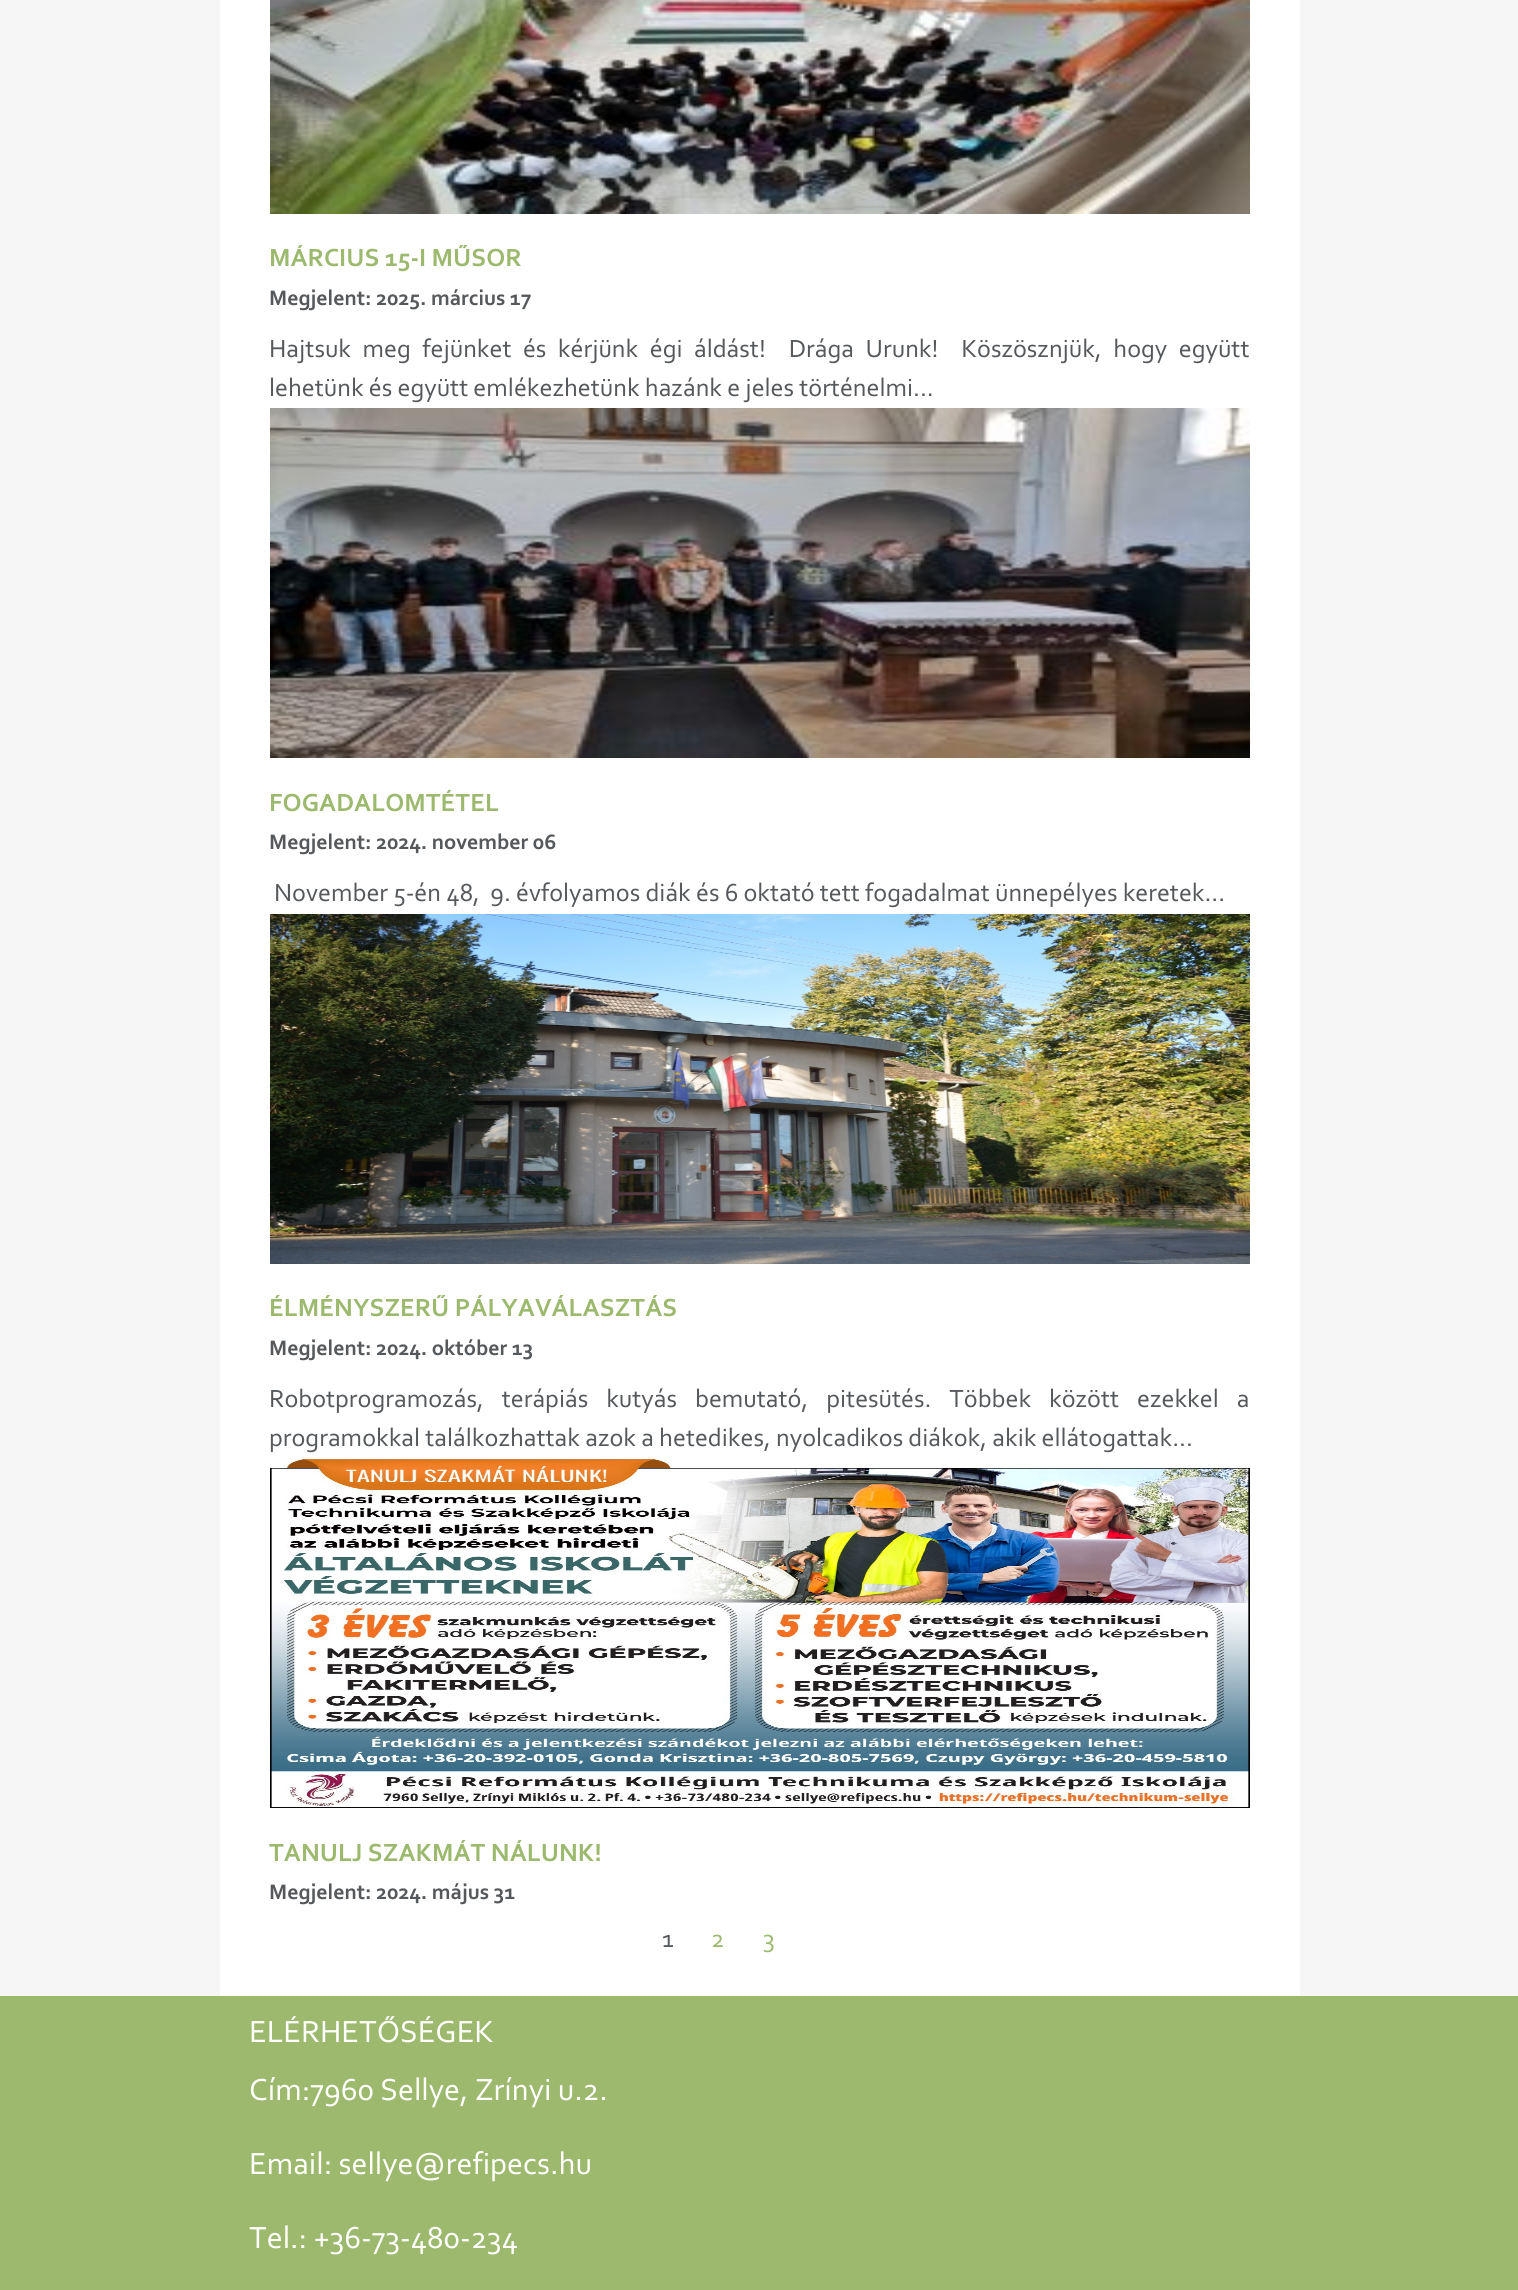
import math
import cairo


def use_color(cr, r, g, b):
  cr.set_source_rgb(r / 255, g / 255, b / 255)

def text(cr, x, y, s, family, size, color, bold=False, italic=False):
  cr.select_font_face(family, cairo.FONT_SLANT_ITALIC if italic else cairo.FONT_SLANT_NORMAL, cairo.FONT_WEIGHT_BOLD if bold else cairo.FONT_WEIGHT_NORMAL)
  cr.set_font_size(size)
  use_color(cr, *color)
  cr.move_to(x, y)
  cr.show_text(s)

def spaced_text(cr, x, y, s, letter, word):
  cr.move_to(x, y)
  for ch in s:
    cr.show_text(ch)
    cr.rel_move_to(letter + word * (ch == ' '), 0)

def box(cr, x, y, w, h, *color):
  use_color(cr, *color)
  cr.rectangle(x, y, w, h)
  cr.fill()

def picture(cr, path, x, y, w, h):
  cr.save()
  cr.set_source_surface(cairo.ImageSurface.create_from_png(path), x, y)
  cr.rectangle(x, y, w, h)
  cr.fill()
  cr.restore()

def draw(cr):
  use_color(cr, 246, 246, 246)
  cr.paint()
  box(cr, 220, 0, 1080, 1996, 255, 255, 255)
  picture(cr, "img_01.png", 270, 0, 980, 214)
  picture(cr, "img_02.png", 270, 408, 980, 350)
  picture(cr, "img_03.png", 270, 914, 980, 350)
  picture(cr, "img_04.png", 270, 1458, 980, 350)
  box(cr, 0, 1996, 1518, 294, 156, 185, 110)
  text(cr, 269, 266, "MÁRCIUS 15-I MŰSOR", "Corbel", 26, (156, 185, 110), bold=True)
  text(cr, 269, 305, "Megjelent: 2025. március 17", "Corbel", 22, (86, 89, 92), bold=True)
  cr.select_font_face("Corbel")
  cr.set_font_size(26)
  spaced_text(cr, 269, 357, "Hajtsuk meg fejünket és kérjünk égi áldást!  Drága Urunk!  Köszösznjük, hogy együtt", 0, 6.25)
  text(cr, 269, 396, "lehetünk és együtt emlékezhetünk hazánk e jeles történelmi...", "Corbel", 26, (86, 89, 92))
  text(cr, 269, 811, "FOGADALOMTÉTEL", "Corbel", 26, (156, 185, 110), bold=True)
  text(cr, 269, 849, "Megjelent: 2024. november 06", "Corbel", 22, (86, 89, 92), bold=True)
  text(cr, 274, 901, "November 5-én 48,  9. évfolyamos diák és 6 oktató tett fogadalmat ünnepélyes keretek...", "Corbel", 26, (86, 89, 92))
  text(cr, 269, 1316, "ÉLMÉNYSZERŰ PÁLYAVÁLASZTÁS", "Corbel", 26, (156, 185, 110), bold=True)
  text(cr, 269, 1355, "Megjelent: 2024. október 13", "Corbel", 22, (86, 89, 92), bold=True)
  cr.select_font_face("Corbel")
  cr.set_font_size(26)
  spaced_text(cr, 269, 1407, "Robotprogramozás, terápiás kutyás bemutató, pitesütés. Többek között ezekkel a", 0, 12.75)
  text(cr, 269, 1446, "programokkal találkozhattak azok a hetedikes, nyolcadikos diákok, akik ellátogattak...", "Corbel", 26, (86, 89, 92))
  text(cr, 269, 1861, "TANULJ SZAKMÁT NÁLUNK!", "Corbel", 26, (156, 185, 110), bold=True)
  text(cr, 269, 1899, "Megjelent: 2024. május 31", "Corbel", 22, (86, 89, 92), bold=True)
  text(cr, 662, 1947, "1", "Corbel", 26, (86, 89, 92))
  text(cr, 711, 1947, "2", "Corbel", 26, (156, 185, 110))
  text(cr, 763, 1947, "3", "Corbel", 26, (156, 185, 110))
  text(cr, 249, 2042, "ELÉRHETŐSÉGEK", "Corbel", 32, (255, 255, 255))
  text(cr, 249, 2100, "Cím:7960 Sellye, Zrínyi u.2.", "Corbel", 32, (255, 255, 255))
  text(cr, 249, 2174, "Email: sellye@refipecs.hu", "Corbel", 32, (255, 255, 255))
  text(cr, 249, 2248, "Tel.: +36-73-480-234", "Corbel", 32, (255, 255, 255))


surface = cairo.ImageSurface(cairo.FORMAT_RGB24, 1518, 2290)
cr = cairo.Context(surface)
options = cairo.FontOptions()
options.set_hint_metrics(cairo.HINT_METRICS_OFF)
options.set_hint_style(cairo.HINT_STYLE_NONE)
cr.set_font_options(options)
cr.set_miter_limit(4)
draw(cr)
surface.write_to_png("out.png")
